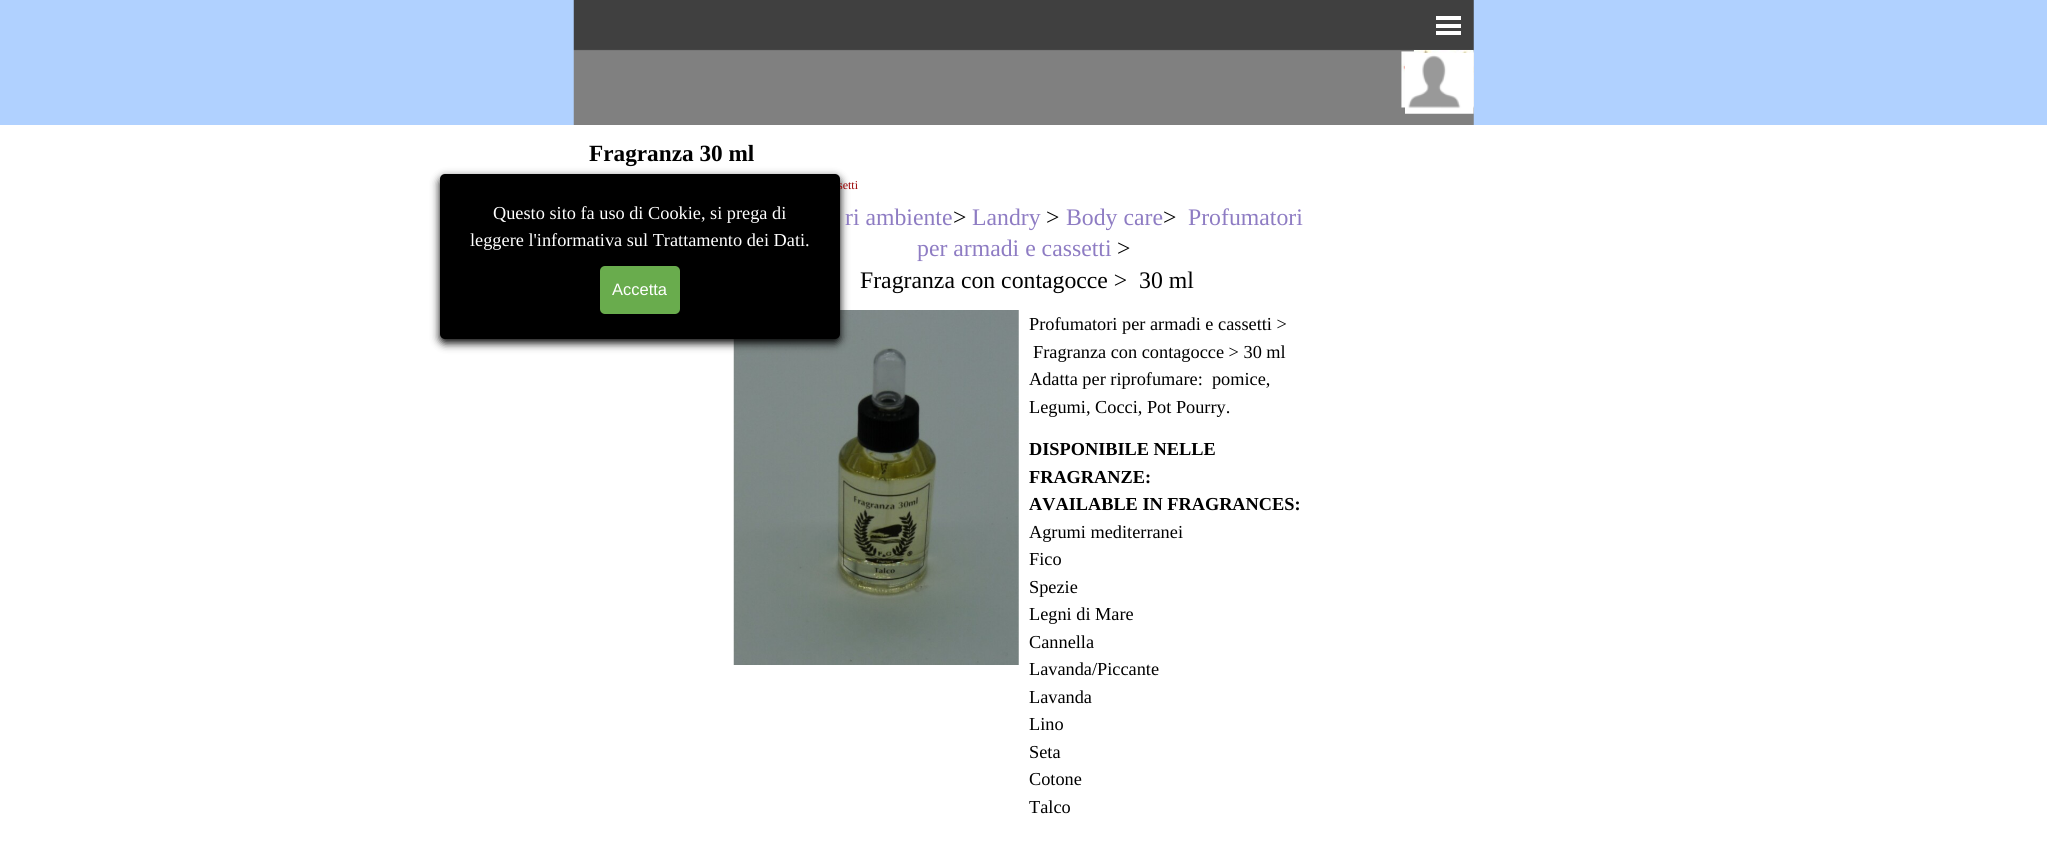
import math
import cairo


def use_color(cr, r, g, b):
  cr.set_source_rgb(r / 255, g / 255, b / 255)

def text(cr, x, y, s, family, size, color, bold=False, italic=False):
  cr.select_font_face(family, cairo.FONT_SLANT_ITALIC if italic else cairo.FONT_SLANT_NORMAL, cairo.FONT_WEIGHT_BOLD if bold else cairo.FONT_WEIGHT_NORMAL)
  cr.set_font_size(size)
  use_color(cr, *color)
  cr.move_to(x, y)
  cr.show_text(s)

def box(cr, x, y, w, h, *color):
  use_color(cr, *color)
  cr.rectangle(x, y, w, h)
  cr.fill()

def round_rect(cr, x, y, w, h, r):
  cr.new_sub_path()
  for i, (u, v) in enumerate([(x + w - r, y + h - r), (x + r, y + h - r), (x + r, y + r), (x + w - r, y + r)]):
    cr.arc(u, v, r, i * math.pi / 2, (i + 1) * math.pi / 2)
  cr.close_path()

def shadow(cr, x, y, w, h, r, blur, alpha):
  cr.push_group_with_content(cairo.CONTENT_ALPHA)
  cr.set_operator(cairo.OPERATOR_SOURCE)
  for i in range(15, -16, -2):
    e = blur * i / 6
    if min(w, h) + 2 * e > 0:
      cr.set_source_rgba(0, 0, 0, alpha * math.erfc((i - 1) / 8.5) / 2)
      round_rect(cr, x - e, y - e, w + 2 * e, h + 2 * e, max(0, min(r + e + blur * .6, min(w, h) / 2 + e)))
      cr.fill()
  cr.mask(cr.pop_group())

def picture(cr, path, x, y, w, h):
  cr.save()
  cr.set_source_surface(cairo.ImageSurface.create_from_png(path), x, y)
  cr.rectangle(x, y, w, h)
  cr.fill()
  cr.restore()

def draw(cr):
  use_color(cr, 255, 255, 255)
  cr.paint()
  box(cr, 0, 0, 2047, 125, 176, 209, 255)
  picture(cr, "img_01.png", 573, 0, 901, 125)
  box(cr, 1436, 16, 25, 4, 255, 255, 255)
  box(cr, 1436, 24, 25, 4, 255, 255, 255)
  box(cr, 1436, 31, 25, 4, 255, 255, 255)
  picture(cr, "img_03.png", 1401, 51, 73, 57)
  picture(cr, "img_02.png", 1413, 50, 61, 57)
  picture(cr, "img_04.png", 1405, 52, 69, 62)
  picture(cr, "img_05.png", 733, 310, 286, 355)
  use_color(cr, 0, 0, 0)
  shadow(cr, 440, 178, 400, 165, 5, 4.5, 1)
  text(cr, 589, 161, "Fragranza 30 ml", "Liberation Serif", 23.25, (0, 0, 0), bold=True)
  text(cr, 838, 189, "setti", "Liberation Serif", 12, (152, 0, 0))
  text(cr, 845, 225, "ri ambiente", "Liberation Serif", 23.75, (142, 124, 195))
  text(cr, 953, 225, ">", "Liberation Serif", 23.75, (0, 0, 0))
  text(cr, 972, 225, "Landry", "Liberation Serif", 23.75, (142, 124, 195))
  text(cr, 1046, 225, ">", "Liberation Serif", 23.75, (0, 0, 0))
  text(cr, 1066, 225, "Body care", "Liberation Serif", 23.75, (142, 124, 195))
  text(cr, 1163, 225, ">", "Liberation Serif", 23.75, (0, 0, 0))
  text(cr, 1188, 225, "Profumatori", "Liberation Serif", 23.75, (142, 124, 195))
  text(cr, 917, 256, "per armadi e cassetti", "Liberation Serif", 23.75, (142, 124, 195))
  text(cr, 1117, 256, ">", "Liberation Serif", 23.75, (0, 0, 0))
  text(cr, 860, 288, "Fragranza con contagocce >  30 ml", "Liberation Serif", 23.75, (0, 0, 0))
  text(cr, 1029, 330, "Profumatori per armadi e cassetti >", "Liberation Serif", 18.3, (0, 0, 0))
  text(cr, 1033, 358, "Fragranza con contagocce > 30 ml", "Liberation Serif", 18.3, (0, 0, 0))
  text(cr, 1029, 385, "Adatta per riprofumare:  pomice,", "Liberation Serif", 18.3, (0, 0, 0))
  text(cr, 1029, 413, "Legumi, Cocci, Pot Pourry.", "Liberation Serif", 18.3, (0, 0, 0))
  text(cr, 1029, 455, "DISPONIBILE NELLE", "Liberation Serif", 18.3, (0, 0, 0), bold=True)
  text(cr, 1029, 483, "FRAGRANZE:", "Liberation Serif", 18.3, (0, 0, 0), bold=True)
  text(cr, 1029, 510, "AVAILABLE IN FRAGRANCES:", "Liberation Serif", 18.3, (0, 0, 0), bold=True)
  text(cr, 1029, 538, "Agrumi mediterranei", "Liberation Serif", 18.3, (0, 0, 0))
  text(cr, 1029, 565, "Fico", "Liberation Serif", 18.3, (0, 0, 0))
  text(cr, 1029, 593, "Spezie", "Liberation Serif", 18.3, (0, 0, 0))
  text(cr, 1029, 620, "Legni di Mare", "Liberation Serif", 18.3, (0, 0, 0))
  text(cr, 1029, 648, "Cannella", "Liberation Serif", 18.3, (0, 0, 0))
  text(cr, 1029, 675, "Lavanda/Piccante", "Liberation Serif", 18.3, (0, 0, 0))
  text(cr, 1029, 703, "Lavanda", "Liberation Serif", 18.3, (0, 0, 0))
  text(cr, 1029, 730, "Lino", "Liberation Serif", 18.3, (0, 0, 0))
  text(cr, 1029, 758, "Seta", "Liberation Serif", 18.3, (0, 0, 0))
  text(cr, 1029, 785, "Cotone", "Liberation Serif", 18.3, (0, 0, 0))
  text(cr, 1029, 813, "Talco", "Liberation Serif", 18.3, (0, 0, 0))
  round_rect(cr, 440, 174, 400, 165, 5)
  cr.fill()
  text(cr, 493, 219, "Questo sito fa uso di Cookie, si prega di", "Liberation Serif", 18.3, (255, 255, 255))
  text(cr, 470, 246, "leggere l'informativa sul Trattamento dei Dati.", "Liberation Serif", 18.3, (255, 255, 255))
  use_color(cr, 105, 172, 77)
  round_rect(cr, 600, 266, 80, 48, 5)
  cr.fill()
  text(cr, 612, 295, "Accetta", "Liberation Sans", 16.5, (255, 255, 255))


surface = cairo.ImageSurface(cairo.FORMAT_RGB24, 2047, 851)
cr = cairo.Context(surface)
options = cairo.FontOptions()
options.set_hint_metrics(cairo.HINT_METRICS_OFF)
options.set_hint_style(cairo.HINT_STYLE_NONE)
cr.set_font_options(options)
cr.set_miter_limit(4)
draw(cr)
surface.write_to_png("out.png")
